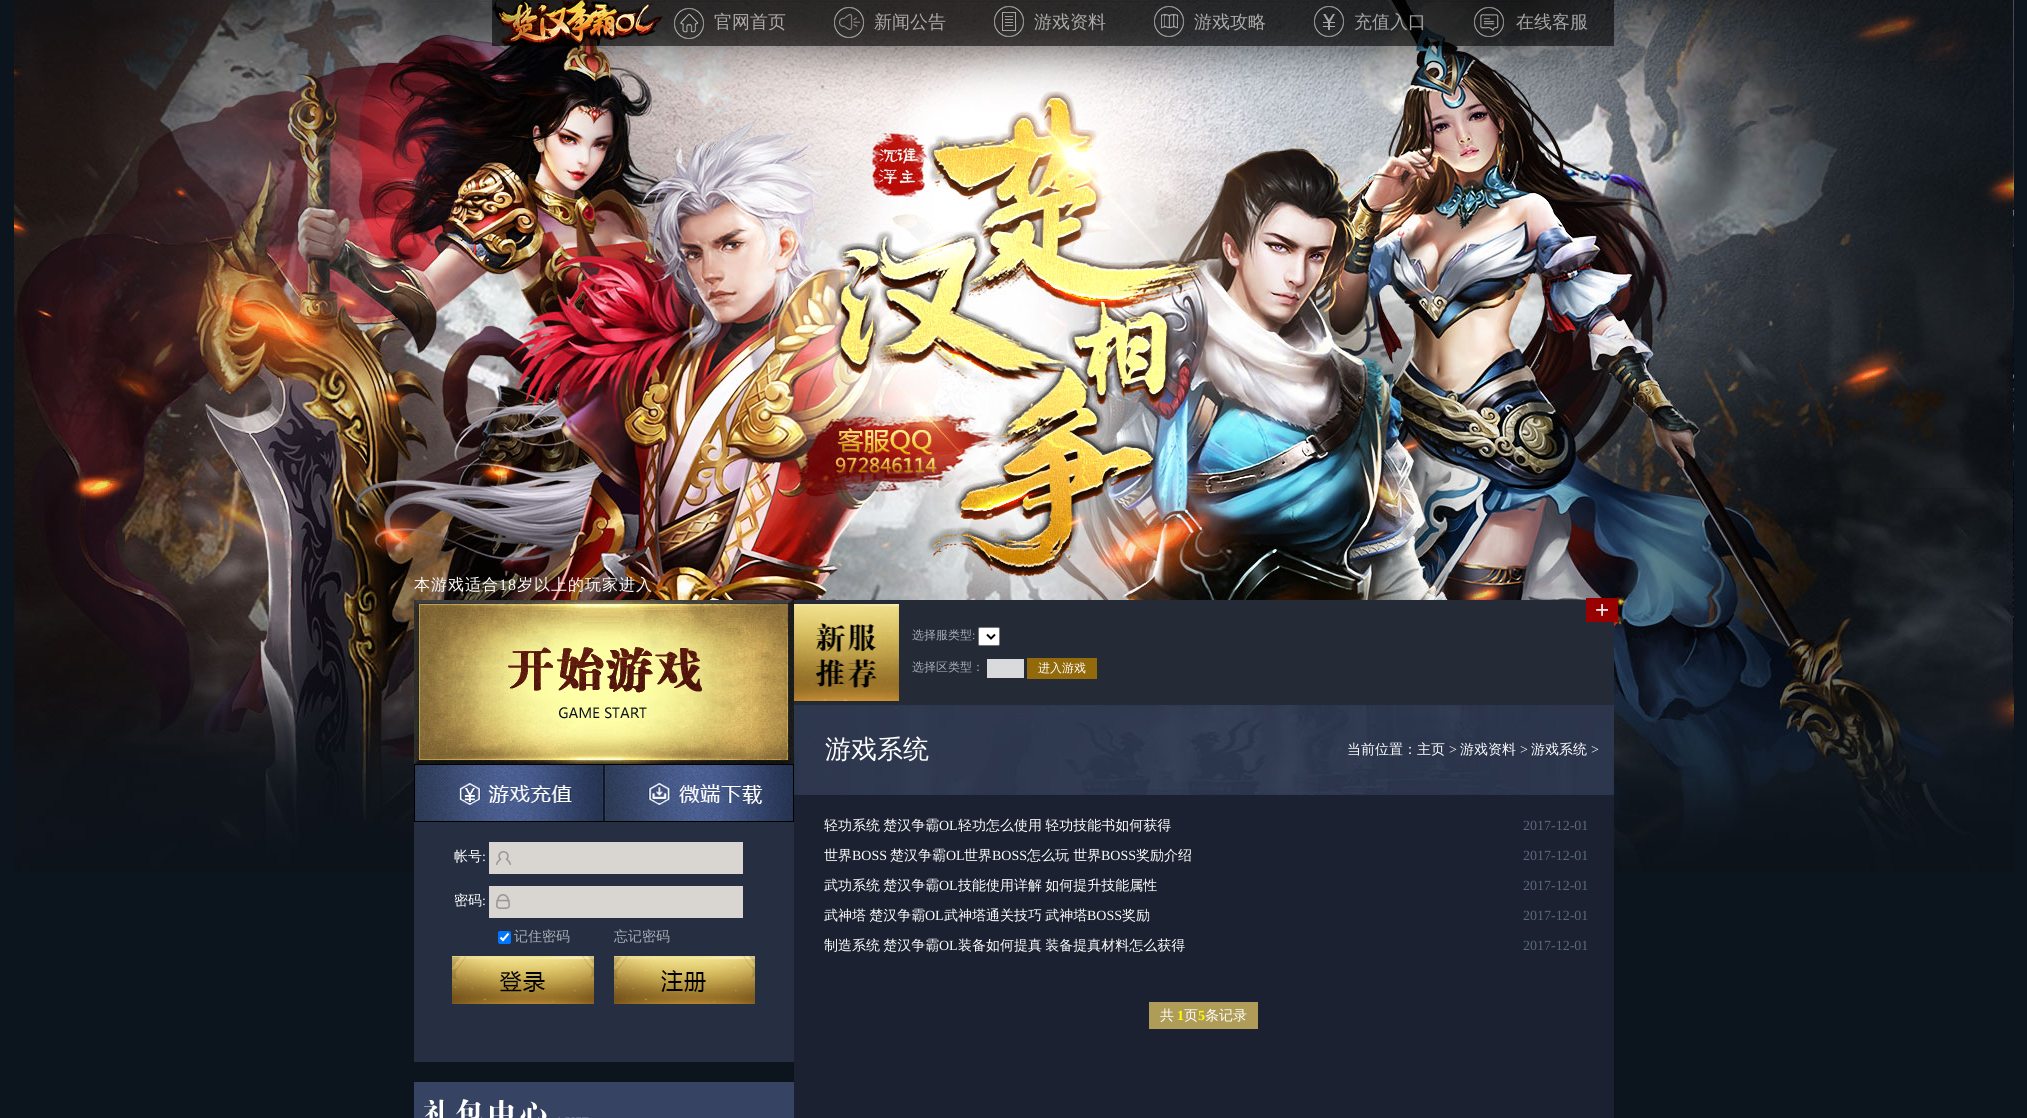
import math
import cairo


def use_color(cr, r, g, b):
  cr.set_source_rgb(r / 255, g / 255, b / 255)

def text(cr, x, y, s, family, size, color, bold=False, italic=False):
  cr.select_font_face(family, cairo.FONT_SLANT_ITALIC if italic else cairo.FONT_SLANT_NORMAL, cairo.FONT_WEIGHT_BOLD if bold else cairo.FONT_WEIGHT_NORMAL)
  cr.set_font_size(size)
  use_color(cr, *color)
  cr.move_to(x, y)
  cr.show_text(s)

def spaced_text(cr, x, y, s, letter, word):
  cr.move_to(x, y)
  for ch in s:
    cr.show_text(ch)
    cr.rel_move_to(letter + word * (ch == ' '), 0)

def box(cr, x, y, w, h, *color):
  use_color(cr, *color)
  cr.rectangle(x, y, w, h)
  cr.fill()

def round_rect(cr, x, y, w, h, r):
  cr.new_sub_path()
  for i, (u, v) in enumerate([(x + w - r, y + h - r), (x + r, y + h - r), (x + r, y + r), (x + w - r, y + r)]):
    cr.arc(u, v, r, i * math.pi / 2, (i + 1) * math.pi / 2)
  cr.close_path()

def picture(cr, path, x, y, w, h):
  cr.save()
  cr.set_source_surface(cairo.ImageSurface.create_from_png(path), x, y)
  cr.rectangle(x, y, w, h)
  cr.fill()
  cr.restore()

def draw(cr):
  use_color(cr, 12, 20, 29)
  cr.paint()
  picture(cr, "img_01.png", 14, 0, 2000, 872)
  cr.set_source_rgba(0, 0, 0, 0.6)
  cr.rectangle(492, 0, 1122, 46)
  cr.fill()
  picture(cr, "img_02.png", 493, 0, 170, 48)
  picture(cr, "img_03.png", 674, 8, 30, 31)
  picture(cr, "img_04.png", 834, 7, 30, 31)
  picture(cr, "img_05.png", 994, 6, 30, 31)
  picture(cr, "img_06.png", 1154, 6, 30, 31)
  picture(cr, "img_07.png", 1314, 6, 30, 31)
  picture(cr, "img_08.png", 1474, 7, 30, 30)
  picture(cr, "img_09.png", 414, 600, 380, 164)
  picture(cr, "img_10.png", 508, 647, 194, 72)
  picture(cr, "img_11.png", 508, 647, 160, 46)
  picture(cr, "img_12.png", 414, 764, 190, 58)
  picture(cr, "img_13.png", 604, 764, 190, 58)
  box(cr, 414, 822, 380, 240, 37, 47, 65)
  box(cr, 489, 842, 254, 32, 217, 214, 209)
  picture(cr, "img_14.png", 496, 851, 15, 14)
  box(cr, 489, 886, 254, 32, 217, 214, 209)
  picture(cr, "img_15.png", 496, 894, 14, 15)
  use_color(cr, 0, 117, 255)
  round_rect(cr, 498, 931, 13, 13, 2)
  cr.fill()
  cr.new_path()
  cr.move_to(500.5, 937.5)
  cr.line_to(503, 940)
  cr.line_to(508.5, 933.5)
  use_color(cr, 255, 255, 255)
  cr.set_line_width(2.1)
  cr.stroke()
  picture(cr, "img_16.png", 452, 956, 142, 48)
  picture(cr, "img_17.png", 614, 956, 141, 48)
  box(cr, 414, 1082, 380, 36, 54, 67, 98)
  picture(cr, "img_18.png", 424, 1099, 165, 19)
  box(cr, 794, 600, 820, 105, 36, 42, 54)
  picture(cr, "img_19.png", 794, 604, 105, 98)
  picture(cr, "img_20.png", 1586, 598, 32, 28)
  use_color(cr, 255, 255, 255)
  round_rect(cr, 978.5, 627.5, 21, 18, 1.5)
  cr.fill_preserve()
  use_color(cr, 118, 118, 118)
  cr.set_line_width(1)
  cr.stroke()
  cr.new_path()
  cr.move_to(987, 634.5)
  cr.line_to(991, 638.5)
  cr.line_to(995, 634.5)
  use_color(cr, 0, 0, 0)
  cr.set_line_width(2)
  cr.stroke()
  box(cr, 987, 659, 37, 19, 217, 218, 219)
  box(cr, 1027, 658, 70, 21, 146, 106, 12)
  picture(cr, "img_21.png", 794, 705, 820, 90)
  box(cr, 794, 795, 820, 323, 27, 33, 48)
  box(cr, 1149, 1002, 109, 27, 176, 156, 89)
  text(cr, 714, 28, "官网首页", "WenQuanYi Zen Hei Medium", 18, (172, 171, 170))
  text(cr, 874, 28, "新闻公告", "WenQuanYi Zen Hei Medium", 18, (172, 171, 170))
  text(cr, 1034, 28, "游戏资料", "WenQuanYi Zen Hei Medium", 18, (172, 171, 170))
  text(cr, 1194, 28, "游戏攻略", "WenQuanYi Zen Hei Medium", 18, (172, 171, 170))
  text(cr, 1354, 28, "充值入口", "WenQuanYi Zen Hei Medium", 18, (166, 166, 167))
  text(cr, 1516, 28, "在线客服", "WenQuanYi Zen Hei Medium", 18, (166, 166, 167))
  cr.set_font_size(16)
  use_color(cr, 255, 255, 255)
  spaced_text(cr, 414, 590, "本游戏适合", 1, 0)
  cr.select_font_face("Liberation Serif")
  spaced_text(cr, 499, 590, "18", 1, 0)
  cr.select_font_face("WenQuanYi Zen Hei Medium")
  spaced_text(cr, 517, 590, "岁以上的玩家进入", 1, 0)
  text(cr, 454, 861, "帐号", "WenQuanYi Zen Hei Medium", 14, (255, 255, 255))
  text(cr, 482, 861, ":", "Liberation Serif", 14, (255, 255, 255))
  text(cr, 454, 905, "密码", "WenQuanYi Zen Hei Medium", 14, (255, 255, 255))
  text(cr, 482, 905, ":", "Liberation Serif", 14, (255, 255, 255))
  text(cr, 514, 941, "记住密码", "WenQuanYi Zen Hei Medium", 14, (168, 173, 182))
  text(cr, 614, 941, "忘记密码", "WenQuanYi Zen Hei Medium", 14, (168, 173, 182))
  text(cr, 912, 639, "选择服类型", "WenQuanYi Zen Hei Medium", 12, (168, 173, 182))
  text(cr, 972, 639, ":", "Liberation Serif", 12, (168, 173, 182))
  text(cr, 912, 671, "选择区类型：", "WenQuanYi Zen Hei Medium", 12, (168, 173, 182))
  text(cr, 1038, 672, "进入游戏", "WenQuanYi Zen Hei Medium", 12, (255, 255, 255))
  text(cr, 825, 758, "游戏系统", "WenQuanYi Zen Hei Medium", 26, (255, 255, 255))
  text(cr, 1347, 754, "当前位置：主页", "WenQuanYi Zen Hei Medium", 14, (255, 255, 255))
  text(cr, 1449, 754, ">", "Liberation Serif", 14, (255, 255, 255))
  text(cr, 1460, 754, "游戏资料", "WenQuanYi Zen Hei Medium", 14, (255, 255, 255))
  text(cr, 1520, 754, ">", "Liberation Serif", 14, (255, 255, 255))
  text(cr, 1531, 754, "游戏系统", "WenQuanYi Zen Hei Medium", 14, (255, 255, 255))
  text(cr, 1591, 754, ">", "Liberation Serif", 14, (255, 255, 255))
  cr.select_font_face("WenQuanYi Zen Hei Medium")
  spaced_text(cr, 824, 830, "轻功系统 楚汉争霸", 0, -1)
  text(cr, 939, 830, "OL", "Liberation Serif", 14, (255, 255, 255))
  cr.select_font_face("WenQuanYi Zen Hei Medium")
  spaced_text(cr, 958, 830, "轻功怎么使用 轻功技能书如何获得", 0, -1)
  text(cr, 1523, 830, "2017-12-01", "Liberation Serif", 14, (89, 105, 123))
  text(cr, 824, 860, "世界", "WenQuanYi Zen Hei Medium", 14, (255, 255, 255))
  text(cr, 852, 860, "BOSS", "Liberation Serif", 14, (255, 255, 255))
  text(cr, 890, 860, "楚汉争霸", "WenQuanYi Zen Hei Medium", 14, (255, 255, 255))
  text(cr, 946, 860, "OL", "Liberation Serif", 14, (255, 255, 255))
  text(cr, 964, 860, "世界", "WenQuanYi Zen Hei Medium", 14, (255, 255, 255))
  text(cr, 992, 860, "BOSS", "Liberation Serif", 14, (255, 255, 255))
  text(cr, 1027, 860, "怎么玩 世界", "WenQuanYi Zen Hei Medium", 14, (255, 255, 255))
  text(cr, 1101, 860, "BOSS", "Liberation Serif", 14, (255, 255, 255))
  text(cr, 1136, 860, "奖励介绍", "WenQuanYi Zen Hei Medium", 14, (255, 255, 255))
  text(cr, 1523, 860, "2017-12-01", "Liberation Serif", 14, (89, 105, 123))
  cr.select_font_face("WenQuanYi Zen Hei Medium")
  use_color(cr, 255, 255, 255)
  spaced_text(cr, 824, 890, "武功系统 楚汉争霸", 0, -1)
  text(cr, 939, 890, "OL", "Liberation Serif", 14, (255, 255, 255))
  cr.select_font_face("WenQuanYi Zen Hei Medium")
  spaced_text(cr, 958, 890, "技能使用详解 如何提升技能属性", 0, -1)
  text(cr, 1523, 890, "2017-12-01", "Liberation Serif", 14, (89, 105, 123))
  cr.select_font_face("WenQuanYi Zen Hei Medium")
  use_color(cr, 255, 255, 255)
  spaced_text(cr, 824, 920, "武神塔 楚汉争霸", 0, -1)
  text(cr, 925, 920, "OL", "Liberation Serif", 14, (255, 255, 255))
  cr.select_font_face("WenQuanYi Zen Hei Medium")
  spaced_text(cr, 944, 920, "武神塔通关技巧 武神塔", 0, -1)
  text(cr, 1087, 920, "BOSS", "Liberation Serif", 14, (255, 255, 255))
  text(cr, 1122, 920, "奖励", "WenQuanYi Zen Hei Medium", 14, (255, 255, 255))
  text(cr, 1523, 920, "2017-12-01", "Liberation Serif", 14, (89, 105, 123))
  cr.select_font_face("WenQuanYi Zen Hei Medium")
  use_color(cr, 255, 255, 255)
  spaced_text(cr, 824, 950, "制造系统 楚汉争霸", 0, -1)
  text(cr, 939, 950, "OL", "Liberation Serif", 14, (255, 255, 255))
  cr.select_font_face("WenQuanYi Zen Hei Medium")
  spaced_text(cr, 958, 950, "装备如何提真 装备提真材料怎么获得", 0, -1)
  text(cr, 1523, 950, "2017-12-01", "Liberation Serif", 14, (89, 105, 123))
  text(cr, 1160, 1020, "共", "WenQuanYi Zen Hei Medium", 14, (255, 255, 255))
  text(cr, 1177, 1020, "1", "Liberation Serif", 14, (255, 255, 0), bold=True)
  text(cr, 1184, 1020, "页", "WenQuanYi Zen Hei Medium", 14, (255, 255, 255))
  text(cr, 1198, 1020, "5", "Liberation Serif", 14, (255, 255, 0), bold=True)
  text(cr, 1205, 1020, "条记录", "WenQuanYi Zen Hei Medium", 14, (255, 255, 255))


surface = cairo.ImageSurface(cairo.FORMAT_RGB24, 2027, 1118)
cr = cairo.Context(surface)
options = cairo.FontOptions()
options.set_hint_metrics(cairo.HINT_METRICS_OFF)
options.set_hint_style(cairo.HINT_STYLE_NONE)
cr.set_font_options(options)
cr.set_miter_limit(4)
draw(cr)
surface.write_to_png("out.png")
